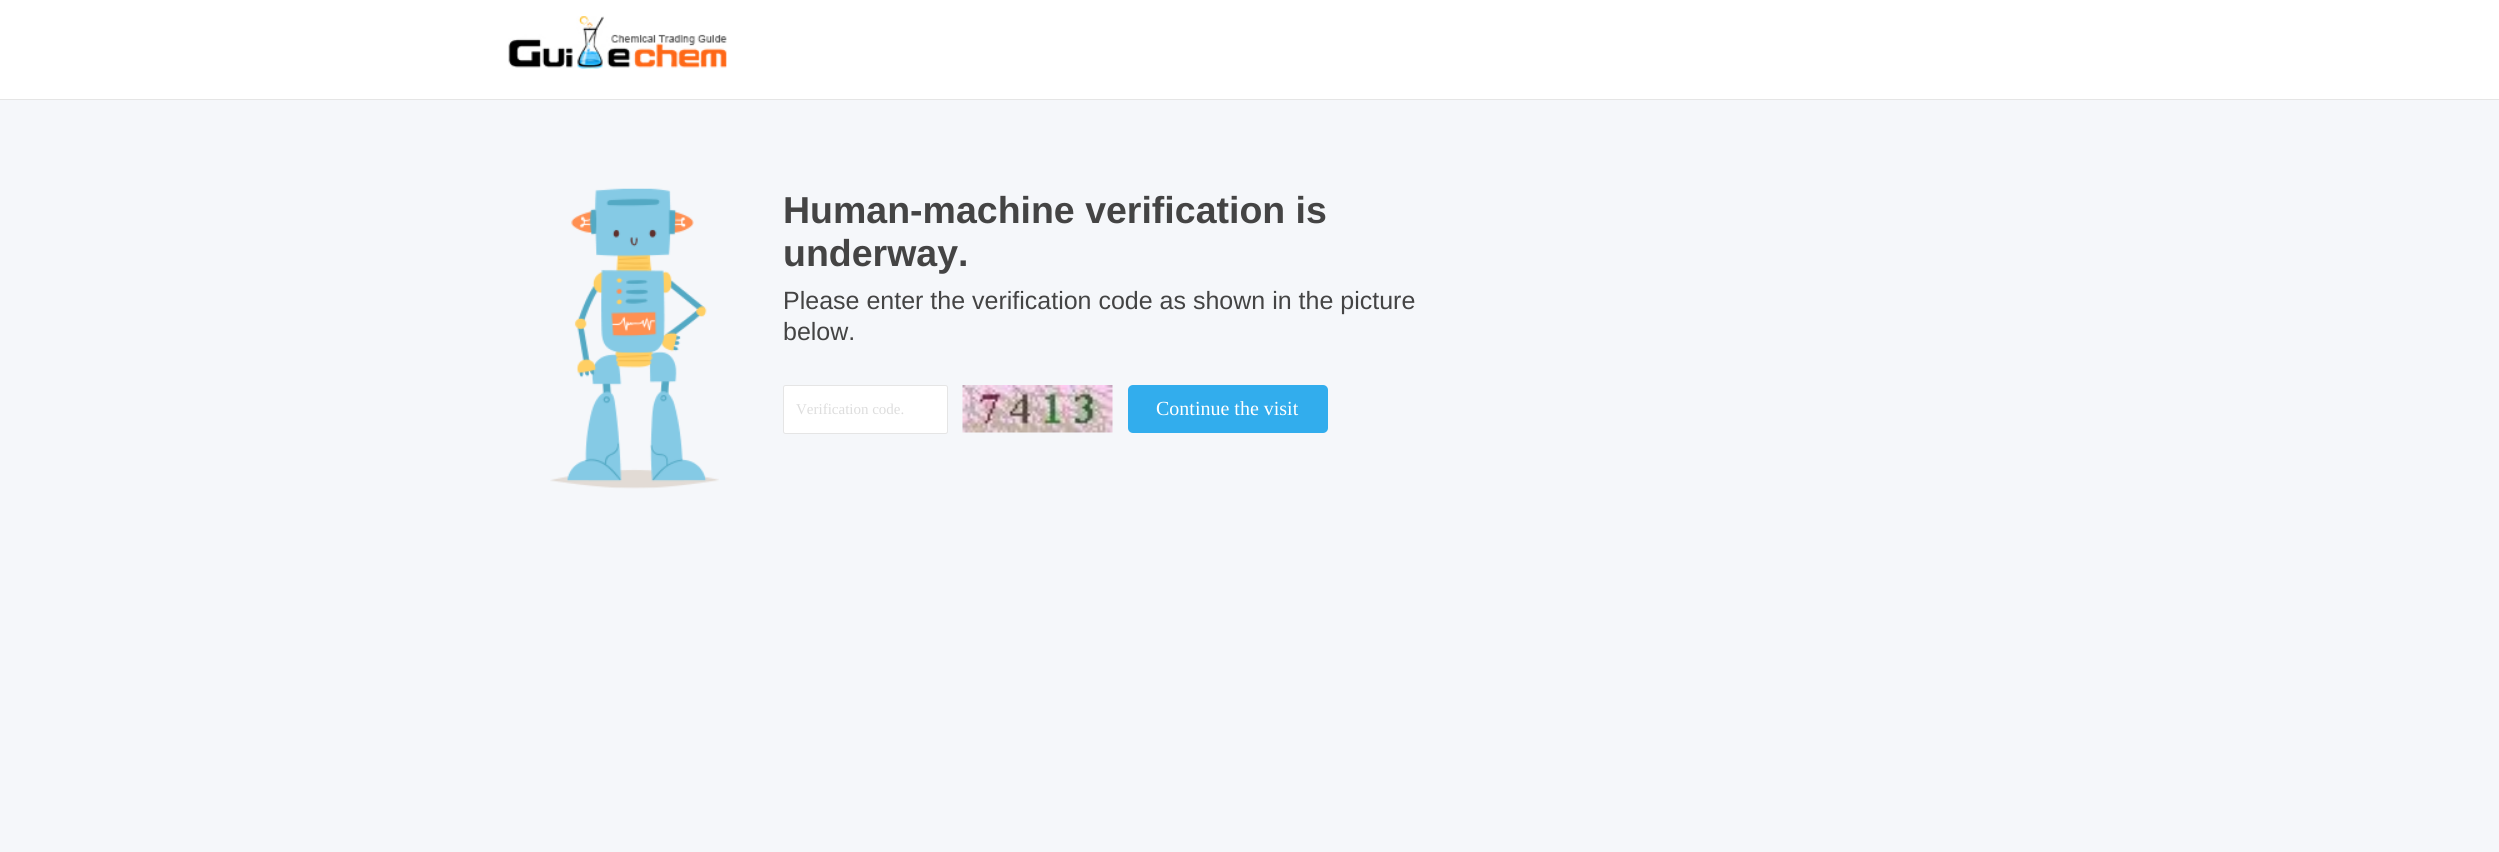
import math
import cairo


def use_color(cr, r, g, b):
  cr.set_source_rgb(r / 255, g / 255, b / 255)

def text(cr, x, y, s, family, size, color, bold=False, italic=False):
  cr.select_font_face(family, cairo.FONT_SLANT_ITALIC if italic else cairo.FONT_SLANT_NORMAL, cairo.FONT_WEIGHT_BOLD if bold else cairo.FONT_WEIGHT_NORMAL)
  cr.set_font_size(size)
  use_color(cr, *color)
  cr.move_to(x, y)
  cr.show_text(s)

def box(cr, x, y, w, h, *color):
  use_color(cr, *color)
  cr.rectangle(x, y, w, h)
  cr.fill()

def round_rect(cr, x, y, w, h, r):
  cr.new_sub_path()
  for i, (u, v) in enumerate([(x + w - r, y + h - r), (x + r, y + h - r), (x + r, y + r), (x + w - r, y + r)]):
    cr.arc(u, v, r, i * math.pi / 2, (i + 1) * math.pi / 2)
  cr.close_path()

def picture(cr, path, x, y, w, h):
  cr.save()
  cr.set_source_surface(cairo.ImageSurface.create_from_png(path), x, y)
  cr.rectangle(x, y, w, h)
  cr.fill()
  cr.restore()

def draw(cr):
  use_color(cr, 255, 255, 255)
  cr.paint()
  picture(cr, "img_01.png", 508, 16, 219, 53)
  box(cr, 0, 99, 2499, 1, 229, 229, 229)
  box(cr, 0, 100, 2499, 752, 245, 247, 250)
  picture(cr, "img_02.png", 550, 188, 169, 301)
  use_color(cr, 255, 255, 255)
  round_rect(cr, 783.5, 385.5, 164, 48, 2)
  cr.fill_preserve()
  use_color(cr, 229, 229, 229)
  cr.set_line_width(1)
  cr.stroke()
  picture(cr, "img_03.png", 962, 385, 151, 48)
  use_color(cr, 50, 173, 237)
  round_rect(cr, 1128, 385, 200, 48, 5)
  cr.fill()
  text(cr, 783, 223, "Human-machine verification is", "Liberation Sans", 37.5, (68, 68, 68), bold=True)
  text(cr, 783, 266, "underway.", "Liberation Sans", 37.5, (68, 68, 68), bold=True)
  text(cr, 783, 309, "Please enter the verification code as shown in the picture", "Liberation Sans", 25, (68, 68, 68))
  text(cr, 783, 340, "below.", "Liberation Sans", 25, (68, 68, 68))
  text(cr, 796, 414, "Verification code.", "Liberation Serif", 15, (221, 221, 221))
  text(cr, 1156, 415, "Continue the visit", "Liberation Serif", 20, (255, 255, 255))


surface = cairo.ImageSurface(cairo.FORMAT_RGB24, 2499, 852)
cr = cairo.Context(surface)
options = cairo.FontOptions()
options.set_hint_metrics(cairo.HINT_METRICS_OFF)
options.set_hint_style(cairo.HINT_STYLE_NONE)
cr.set_font_options(options)
cr.set_miter_limit(4)
draw(cr)
surface.write_to_png("out.png")
